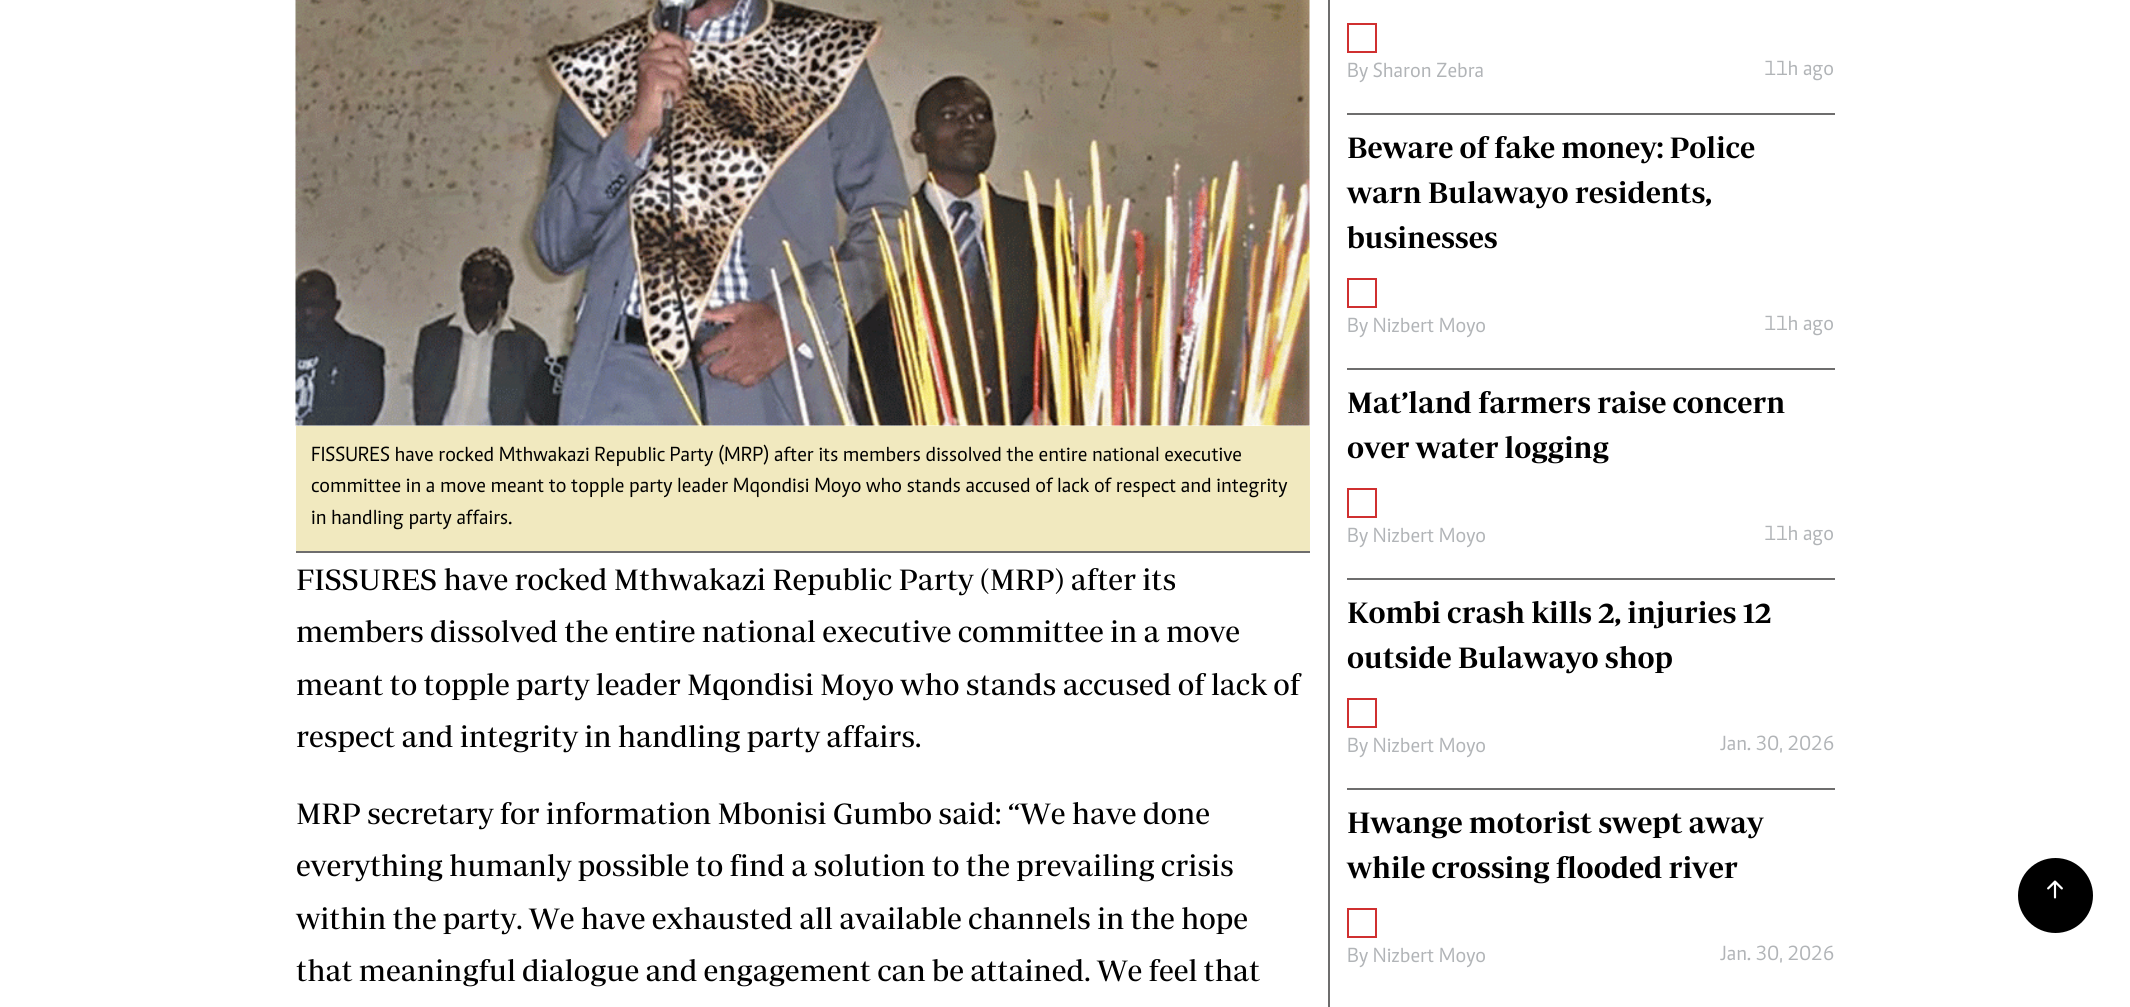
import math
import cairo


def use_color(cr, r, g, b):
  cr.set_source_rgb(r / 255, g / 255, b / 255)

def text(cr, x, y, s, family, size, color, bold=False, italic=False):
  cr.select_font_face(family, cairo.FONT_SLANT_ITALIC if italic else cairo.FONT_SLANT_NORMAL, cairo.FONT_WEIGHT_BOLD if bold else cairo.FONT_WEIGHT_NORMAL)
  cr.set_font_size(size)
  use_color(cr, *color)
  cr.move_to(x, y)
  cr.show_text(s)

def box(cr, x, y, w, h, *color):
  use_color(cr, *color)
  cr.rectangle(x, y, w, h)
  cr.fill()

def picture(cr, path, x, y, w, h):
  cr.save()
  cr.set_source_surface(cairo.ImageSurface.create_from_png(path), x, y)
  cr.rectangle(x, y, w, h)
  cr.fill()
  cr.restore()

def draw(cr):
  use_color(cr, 255, 255, 255)
  cr.paint()
  picture(cr, "img_01.png", 295, 0, 1015, 426)
  box(cr, 296, 426, 1014, 125, 241, 233, 191)
  box(cr, 296, 551, 1014, 2, 110, 109, 109)
  box(cr, 1328, 0, 2, 1007, 110, 109, 109)
  box(cr, 1347, 113, 488, 2, 110, 109, 109)
  cr.rectangle(1348, 24, 28, 28)
  use_color(cr, 208, 48, 48)
  cr.stroke()
  box(cr, 1347, 368, 488, 2, 110, 109, 109)
  cr.rectangle(1348, 279, 28, 28)
  use_color(cr, 208, 48, 48)
  cr.stroke()
  box(cr, 1347, 578, 488, 2, 110, 109, 109)
  cr.rectangle(1348, 489, 28, 28)
  use_color(cr, 208, 48, 48)
  cr.stroke()
  box(cr, 1347, 788, 488, 2, 110, 109, 109)
  cr.rectangle(1348, 699, 28, 28)
  use_color(cr, 208, 48, 48)
  cr.stroke()
  cr.rectangle(1348, 909, 28, 28)
  cr.stroke()
  use_color(cr, 0, 0, 0)
  cr.arc(2055.5, 895.5, 37.5, 0, 2 * math.pi)
  cr.fill()
  picture(cr, "img_02.png", 2047, 880, 16, 19)
  text(cr, 311, 461, "FISSURES have rocked Mthwakazi Republic Party (MRP) after its members dissolved the entire national executive", "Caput", 21, (0, 0, 0))
  text(cr, 311, 492, "committee in a move meant to topple party leader Mqondisi Moyo who stands accused of lack of respect and integrity", "Caput", 21, (0, 0, 0))
  text(cr, 311, 524, "in handling party affairs.", "Caput", 21, (0, 0, 0))
  text(cr, 296, 590, "FISSURES have rocked Mthwakazi Republic Party (MRP) after its", "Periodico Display", 30, (0, 0, 0))
  text(cr, 296, 642, "members dissolved the entire national executive committee in a move", "Periodico Display", 30, (0, 0, 0))
  text(cr, 296, 695, "meant to topple party leader Mqondisi Moyo who stands accused of lack of", "Periodico Display", 30, (0, 0, 0))
  text(cr, 296, 747, "respect and integrity in handling party affairs.", "Periodico Display", 30, (0, 0, 0))
  text(cr, 296, 824, "MRP secretary for information Mbonisi Gumbo said: “We have done", "Periodico Display", 30, (0, 0, 0))
  text(cr, 296, 876, "everything humanly possible to find a solution to the prevailing crisis", "Periodico Display", 30, (0, 0, 0))
  text(cr, 296, 929, "within the party. We have exhausted all available channels in the hope", "Periodico Display", 30, (0, 0, 0))
  text(cr, 296, 981, "that meaningful dialogue and engagement can be attained. We feel that", "Periodico Display", 30, (0, 0, 0))
  text(cr, 1347, 77, "By Sharon Zebra", "Caput", 21, (177, 180, 183))
  text(cr, 1764, 75, "11h ago", "Caput", 21, (177, 180, 183))
  text(cr, 1347, 158, "Beware of fake money: Police", "Periodico Display SemiBold", 30, (0, 0, 0))
  text(cr, 1347, 203, "warn Bulawayo residents,", "Periodico Display SemiBold", 30, (0, 0, 0))
  text(cr, 1347, 248, "businesses", "Periodico Display SemiBold", 30, (0, 0, 0))
  text(cr, 1347, 332, "By Nizbert Moyo", "Caput", 21, (177, 180, 183))
  text(cr, 1764, 330, "11h ago", "Caput", 21, (177, 180, 183))
  text(cr, 1347, 413, "Mat’land farmers raise concern", "Periodico Display SemiBold", 30, (0, 0, 0))
  text(cr, 1347, 458, "over water logging", "Periodico Display SemiBold", 30, (0, 0, 0))
  text(cr, 1347, 542, "By Nizbert Moyo", "Caput", 21, (177, 180, 183))
  text(cr, 1764, 540, "11h ago", "Caput", 21, (177, 180, 183))
  text(cr, 1347, 623, "Kombi crash kills 2, injuries 12", "Periodico Display SemiBold", 30, (0, 0, 0))
  text(cr, 1347, 668, "outside Bulawayo shop", "Periodico Display SemiBold", 30, (0, 0, 0))
  text(cr, 1347, 752, "By Nizbert Moyo", "Caput", 21, (177, 180, 183))
  text(cr, 1720, 750, "Jan. 30, 2026", "Caput", 21, (177, 180, 183))
  text(cr, 1347, 833, "Hwange motorist swept away", "Periodico Display SemiBold", 30, (0, 0, 0))
  text(cr, 1347, 878, "while crossing flooded river", "Periodico Display SemiBold", 30, (0, 0, 0))
  text(cr, 1347, 962, "By Nizbert Moyo", "Caput", 21, (177, 180, 183))
  text(cr, 1720, 960, "Jan. 30, 2026", "Caput", 21, (177, 180, 183))


surface = cairo.ImageSurface(cairo.FORMAT_RGB24, 2130, 1007)
cr = cairo.Context(surface)
options = cairo.FontOptions()
options.set_hint_metrics(cairo.HINT_METRICS_OFF)
options.set_hint_style(cairo.HINT_STYLE_NONE)
cr.set_font_options(options)
cr.set_miter_limit(4)
draw(cr)
surface.write_to_png("out.png")
